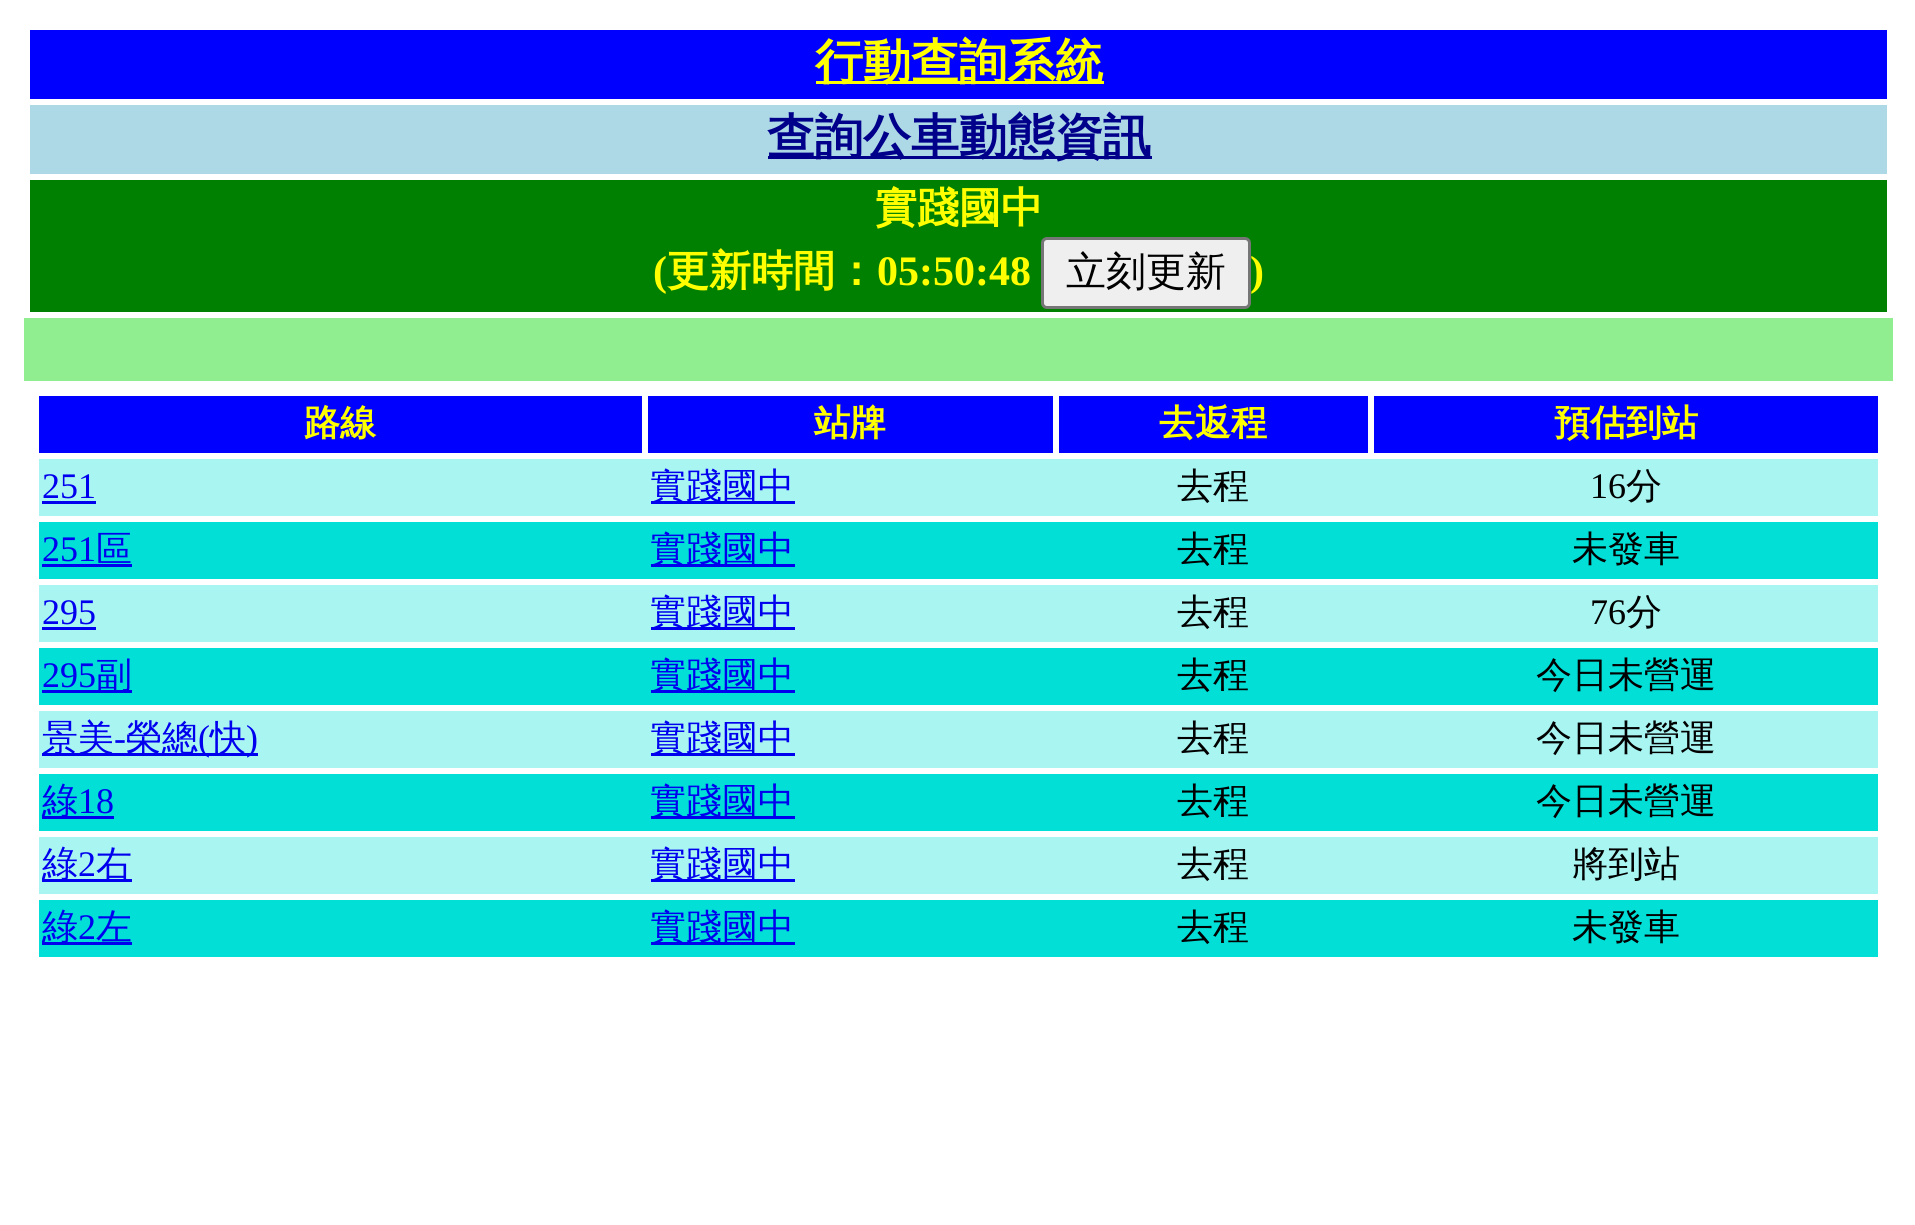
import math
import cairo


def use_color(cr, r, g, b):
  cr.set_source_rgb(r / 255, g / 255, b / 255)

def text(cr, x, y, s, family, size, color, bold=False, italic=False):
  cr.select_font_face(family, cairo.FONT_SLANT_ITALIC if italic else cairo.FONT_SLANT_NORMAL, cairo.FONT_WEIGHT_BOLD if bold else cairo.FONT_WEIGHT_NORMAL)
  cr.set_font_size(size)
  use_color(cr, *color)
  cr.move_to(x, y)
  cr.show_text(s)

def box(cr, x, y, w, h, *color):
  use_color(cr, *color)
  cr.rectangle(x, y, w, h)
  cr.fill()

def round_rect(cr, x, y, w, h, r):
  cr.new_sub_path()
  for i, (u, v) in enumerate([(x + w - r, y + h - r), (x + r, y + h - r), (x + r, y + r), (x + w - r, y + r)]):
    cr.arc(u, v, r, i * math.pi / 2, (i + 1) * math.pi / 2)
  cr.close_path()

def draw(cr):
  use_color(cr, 255, 255, 255)
  cr.paint()
  box(cr, 30, 30, 1857, 69, 0, 0, 255)
  box(cr, 816, 81, 288, 3, 255, 255, 0)
  box(cr, 30, 105, 1857, 69, 173, 216, 230)
  box(cr, 768, 156, 384, 3, 0, 0, 139)
  box(cr, 30, 180, 1857, 132, 0, 128, 0)
  use_color(cr, 239, 239, 239)
  round_rect(cr, 1042.5, 238.5, 207, 69, 4.5)
  cr.fill_preserve()
  use_color(cr, 118, 118, 118)
  cr.set_line_width(3)
  cr.stroke()
  box(cr, 24, 318, 1869, 63, 144, 238, 144)
  box(cr, 39, 396, 603, 57, 0, 0, 255)
  box(cr, 648, 396, 405, 57, 0, 0, 255)
  box(cr, 1059, 396, 309, 57, 0, 0, 255)
  box(cr, 1374, 396, 504, 57, 0, 0, 255)
  box(cr, 39, 459, 1839, 57, 169, 245, 242)
  box(cr, 42, 501, 54, 3, 0, 0, 238)
  box(cr, 651, 501, 144, 3, 0, 0, 238)
  box(cr, 39, 522, 1839, 57, 1, 223, 215)
  box(cr, 42, 564, 90, 3, 0, 0, 238)
  box(cr, 651, 564, 144, 3, 0, 0, 238)
  box(cr, 39, 585, 1839, 57, 169, 245, 242)
  box(cr, 42, 627, 54, 3, 0, 0, 238)
  box(cr, 651, 627, 144, 3, 0, 0, 238)
  box(cr, 39, 648, 1839, 57, 1, 223, 215)
  box(cr, 42, 690, 90, 3, 0, 0, 238)
  box(cr, 651, 690, 144, 3, 0, 0, 238)
  box(cr, 39, 711, 1839, 57, 169, 245, 242)
  box(cr, 42, 753, 216, 3, 0, 0, 238)
  box(cr, 651, 753, 144, 3, 0, 0, 238)
  box(cr, 39, 774, 1839, 57, 1, 223, 215)
  box(cr, 42, 816, 72, 3, 0, 0, 238)
  box(cr, 651, 816, 144, 3, 0, 0, 238)
  box(cr, 39, 837, 1839, 57, 169, 245, 242)
  box(cr, 42, 879, 90, 3, 0, 0, 238)
  box(cr, 651, 879, 144, 3, 0, 0, 238)
  box(cr, 39, 900, 1839, 57, 1, 223, 215)
  box(cr, 42, 942, 90, 3, 0, 0, 238)
  box(cr, 651, 942, 144, 3, 0, 0, 238)
  text(cr, 815, 78, "行動查詢系統", "WenQuanYi Zen Hei", 48, (255, 255, 0), bold=True)
  text(cr, 767, 153, "查詢公車動態資訊", "WenQuanYi Zen Hei", 48, (0, 0, 139), bold=True)
  text(cr, 875, 222, "實踐國中", "WenQuanYi Zen Hei", 42, (255, 255, 0), bold=True)
  text(cr, 653, 285, "(", "Liberation Serif", 42, (255, 255, 0), bold=True)
  text(cr, 667, 285, "更新時間：", "WenQuanYi Zen Hei", 42, (255, 255, 0), bold=True)
  text(cr, 877, 285, "05:50:48", "Liberation Serif", 42, (255, 255, 0), bold=True)
  text(cr, 1066, 285, "立刻更新", "WenQuanYi Zen Hei Medium", 40, (0, 0, 0))
  text(cr, 1250, 285, ")", "Liberation Serif", 42, (255, 255, 0), bold=True)
  text(cr, 304, 435, "路線", "WenQuanYi Zen Hei", 36, (255, 255, 0), bold=True)
  text(cr, 814, 435, "站牌", "WenQuanYi Zen Hei", 36, (255, 255, 0), bold=True)
  text(cr, 1159, 435, "去返程", "WenQuanYi Zen Hei", 36, (255, 255, 0), bold=True)
  text(cr, 1554, 435, "預估到站", "WenQuanYi Zen Hei", 36, (255, 255, 0), bold=True)
  text(cr, 42, 498, "251", "Liberation Serif", 36, (0, 0, 238))
  text(cr, 650, 498, "實踐國中", "WenQuanYi Zen Hei Medium", 36, (0, 0, 238))
  text(cr, 1177, 498, "去程", "WenQuanYi Zen Hei Medium", 36, (0, 0, 0))
  text(cr, 1590, 498, "16", "Liberation Serif", 36, (0, 0, 0))
  text(cr, 1626, 498, "分", "WenQuanYi Zen Hei Medium", 36, (0, 0, 0))
  text(cr, 42, 561, "251", "Liberation Serif", 36, (0, 0, 238))
  text(cr, 96, 561, "區", "WenQuanYi Zen Hei Medium", 36, (0, 0, 238))
  text(cr, 650, 561, "實踐國中", "WenQuanYi Zen Hei Medium", 36, (0, 0, 238))
  text(cr, 1177, 561, "去程", "WenQuanYi Zen Hei Medium", 36, (0, 0, 0))
  text(cr, 1572, 561, "未發車", "WenQuanYi Zen Hei Medium", 36, (0, 0, 0))
  text(cr, 42, 624, "295", "Liberation Serif", 36, (0, 0, 238))
  text(cr, 650, 624, "實踐國中", "WenQuanYi Zen Hei Medium", 36, (0, 0, 238))
  text(cr, 1177, 624, "去程", "WenQuanYi Zen Hei Medium", 36, (0, 0, 0))
  text(cr, 1590, 624, "76", "Liberation Serif", 36, (0, 0, 0))
  text(cr, 1626, 624, "分", "WenQuanYi Zen Hei Medium", 36, (0, 0, 0))
  text(cr, 42, 687, "295", "Liberation Serif", 36, (0, 0, 238))
  text(cr, 96, 687, "副", "WenQuanYi Zen Hei Medium", 36, (0, 0, 238))
  text(cr, 650, 687, "實踐國中", "WenQuanYi Zen Hei Medium", 36, (0, 0, 238))
  text(cr, 1177, 687, "去程", "WenQuanYi Zen Hei Medium", 36, (0, 0, 0))
  text(cr, 1536, 687, "今日未營運", "WenQuanYi Zen Hei Medium", 36, (0, 0, 0))
  text(cr, 42, 750, "景美", "WenQuanYi Zen Hei Medium", 36, (0, 0, 238))
  text(cr, 114, 750, "-", "Liberation Serif", 36, (0, 0, 238))
  text(cr, 126, 750, "榮總", "WenQuanYi Zen Hei Medium", 36, (0, 0, 238))
  text(cr, 198, 750, "(", "Liberation Serif", 36, (0, 0, 238))
  text(cr, 210, 750, "快", "WenQuanYi Zen Hei Medium", 36, (0, 0, 238))
  text(cr, 246, 750, ")", "Liberation Serif", 36, (0, 0, 238))
  text(cr, 650, 750, "實踐國中", "WenQuanYi Zen Hei Medium", 36, (0, 0, 238))
  text(cr, 1177, 750, "去程", "WenQuanYi Zen Hei Medium", 36, (0, 0, 0))
  text(cr, 1536, 750, "今日未營運", "WenQuanYi Zen Hei Medium", 36, (0, 0, 0))
  text(cr, 42, 813, "綠", "WenQuanYi Zen Hei Medium", 36, (0, 0, 238))
  text(cr, 78, 813, "18", "Liberation Serif", 36, (0, 0, 238))
  text(cr, 650, 813, "實踐國中", "WenQuanYi Zen Hei Medium", 36, (0, 0, 238))
  text(cr, 1177, 813, "去程", "WenQuanYi Zen Hei Medium", 36, (0, 0, 0))
  text(cr, 1536, 813, "今日未營運", "WenQuanYi Zen Hei Medium", 36, (0, 0, 0))
  text(cr, 42, 876, "綠", "WenQuanYi Zen Hei Medium", 36, (0, 0, 238))
  text(cr, 78, 876, "2", "Liberation Serif", 36, (0, 0, 238))
  text(cr, 96, 876, "右", "WenQuanYi Zen Hei Medium", 36, (0, 0, 238))
  text(cr, 650, 876, "實踐國中", "WenQuanYi Zen Hei Medium", 36, (0, 0, 238))
  text(cr, 1177, 876, "去程", "WenQuanYi Zen Hei Medium", 36, (0, 0, 0))
  text(cr, 1572, 876, "將到站", "WenQuanYi Zen Hei Medium", 36, (0, 0, 0))
  text(cr, 42, 939, "綠", "WenQuanYi Zen Hei Medium", 36, (0, 0, 238))
  text(cr, 78, 939, "2", "Liberation Serif", 36, (0, 0, 238))
  text(cr, 96, 939, "左", "WenQuanYi Zen Hei Medium", 36, (0, 0, 238))
  text(cr, 650, 939, "實踐國中", "WenQuanYi Zen Hei Medium", 36, (0, 0, 238))
  text(cr, 1177, 939, "去程", "WenQuanYi Zen Hei Medium", 36, (0, 0, 0))
  text(cr, 1572, 939, "未發車", "WenQuanYi Zen Hei Medium", 36, (0, 0, 0))


surface = cairo.ImageSurface(cairo.FORMAT_RGB24, 1915, 1225)
cr = cairo.Context(surface)
options = cairo.FontOptions()
options.set_hint_metrics(cairo.HINT_METRICS_OFF)
options.set_hint_style(cairo.HINT_STYLE_NONE)
cr.set_font_options(options)
cr.set_miter_limit(4)
draw(cr)
surface.write_to_png("out.png")
